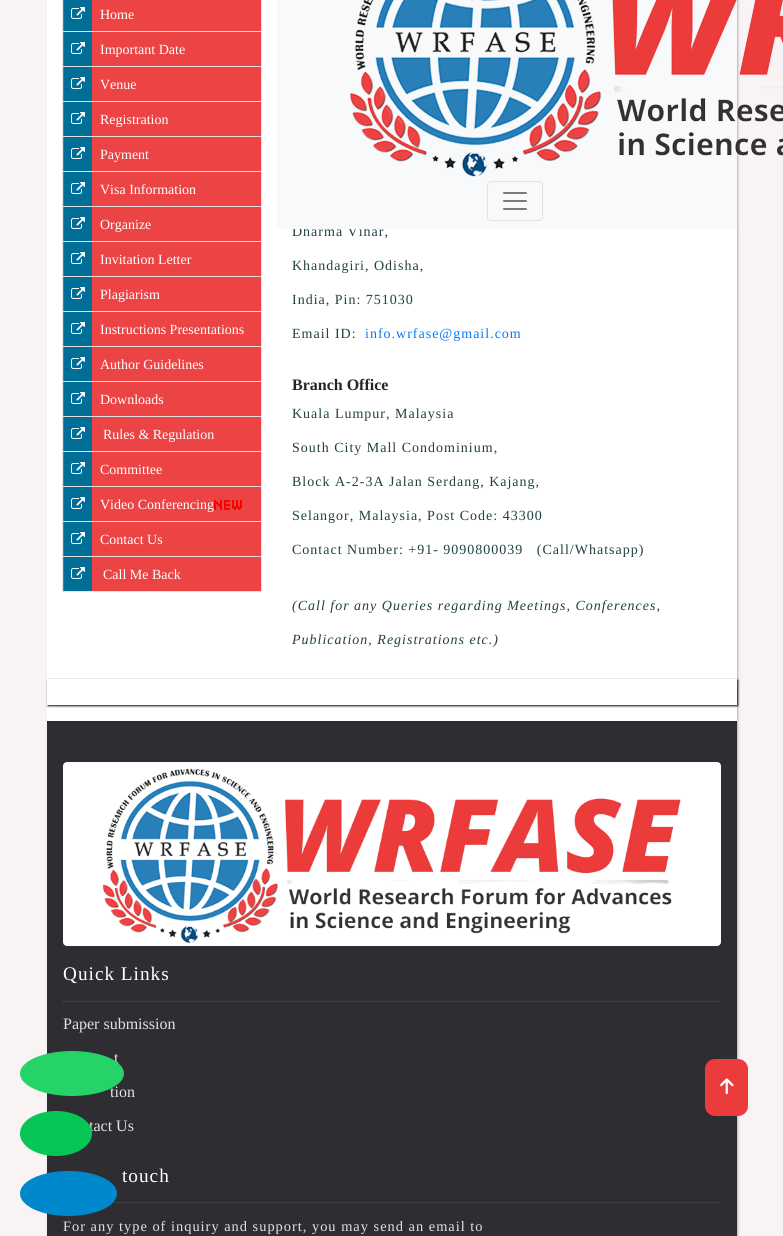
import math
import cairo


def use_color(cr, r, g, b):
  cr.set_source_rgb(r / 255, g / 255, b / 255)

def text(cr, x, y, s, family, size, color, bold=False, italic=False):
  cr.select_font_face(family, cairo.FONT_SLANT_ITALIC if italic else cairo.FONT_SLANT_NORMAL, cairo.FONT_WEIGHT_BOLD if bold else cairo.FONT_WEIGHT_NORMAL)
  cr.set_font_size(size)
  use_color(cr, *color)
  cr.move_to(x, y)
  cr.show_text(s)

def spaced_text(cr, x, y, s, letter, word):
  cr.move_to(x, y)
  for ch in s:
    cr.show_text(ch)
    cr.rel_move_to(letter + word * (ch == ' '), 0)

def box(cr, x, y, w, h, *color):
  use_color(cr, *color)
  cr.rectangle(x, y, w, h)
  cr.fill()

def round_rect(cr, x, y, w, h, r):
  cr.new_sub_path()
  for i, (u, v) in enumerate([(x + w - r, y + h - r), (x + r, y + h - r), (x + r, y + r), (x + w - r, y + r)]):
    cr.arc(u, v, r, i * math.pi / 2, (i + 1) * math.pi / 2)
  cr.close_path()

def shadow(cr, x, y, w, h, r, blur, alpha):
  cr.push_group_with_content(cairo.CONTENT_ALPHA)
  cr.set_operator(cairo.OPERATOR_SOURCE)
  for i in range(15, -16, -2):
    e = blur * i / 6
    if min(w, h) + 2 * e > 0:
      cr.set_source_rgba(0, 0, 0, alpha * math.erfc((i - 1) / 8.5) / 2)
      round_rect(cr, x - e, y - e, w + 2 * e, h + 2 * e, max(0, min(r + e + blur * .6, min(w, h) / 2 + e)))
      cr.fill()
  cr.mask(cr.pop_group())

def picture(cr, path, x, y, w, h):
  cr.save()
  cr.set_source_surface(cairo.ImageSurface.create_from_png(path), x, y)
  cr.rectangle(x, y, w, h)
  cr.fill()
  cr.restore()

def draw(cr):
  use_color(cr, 249, 243, 243)
  cr.paint()
  use_color(cr, 179, 178, 179)
  shadow(cr, 48, -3, 690, 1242, 0, 1, 1)
  box(cr, 47, 0, 690, 721, 255, 255, 255)
  use_color(cr, 236, 68, 68)
  cr.rectangle(62.5, -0.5, 199, 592)
  cr.fill_preserve()
  use_color(cr, 230, 224, 224)
  cr.set_line_width(1)
  cr.stroke()
  box(cr, 64, 0, 28, 31, 1, 110, 151)
  picture(cr, "img_03.png", 71, 7, 14, 12)
  box(cr, 63, 31, 198, 1, 226, 223, 223)
  box(cr, 64, 32, 28, 34, 1, 110, 151)
  picture(cr, "img_03.png", 71, 42, 14, 12)
  box(cr, 63, 66, 198, 1, 226, 223, 223)
  box(cr, 64, 67, 28, 34, 1, 110, 151)
  picture(cr, "img_03.png", 71, 77, 14, 12)
  box(cr, 63, 101, 198, 1, 226, 223, 223)
  box(cr, 64, 102, 28, 34, 1, 110, 151)
  picture(cr, "img_03.png", 71, 112, 14, 12)
  box(cr, 63, 136, 198, 1, 226, 223, 223)
  box(cr, 64, 137, 28, 34, 1, 110, 151)
  picture(cr, "img_03.png", 71, 147, 14, 12)
  box(cr, 63, 171, 198, 1, 226, 223, 223)
  box(cr, 64, 172, 28, 34, 1, 110, 151)
  picture(cr, "img_03.png", 71, 182, 14, 12)
  box(cr, 63, 206, 198, 1, 226, 223, 223)
  box(cr, 64, 207, 28, 34, 1, 110, 151)
  picture(cr, "img_03.png", 71, 217, 14, 12)
  box(cr, 63, 241, 198, 1, 226, 223, 223)
  box(cr, 64, 242, 28, 34, 1, 110, 151)
  picture(cr, "img_03.png", 71, 252, 14, 12)
  box(cr, 63, 276, 198, 1, 226, 223, 223)
  box(cr, 64, 277, 28, 34, 1, 110, 151)
  picture(cr, "img_03.png", 71, 287, 14, 12)
  box(cr, 63, 311, 198, 1, 226, 223, 223)
  box(cr, 64, 312, 28, 34, 1, 110, 151)
  picture(cr, "img_03.png", 71, 322, 14, 12)
  box(cr, 63, 346, 198, 1, 226, 223, 223)
  box(cr, 64, 347, 28, 34, 1, 110, 151)
  picture(cr, "img_03.png", 71, 357, 14, 12)
  box(cr, 63, 381, 198, 1, 226, 223, 223)
  box(cr, 64, 382, 28, 34, 1, 110, 151)
  picture(cr, "img_03.png", 71, 392, 14, 12)
  box(cr, 63, 416, 198, 1, 226, 223, 223)
  box(cr, 64, 417, 28, 34, 1, 110, 151)
  picture(cr, "img_03.png", 71, 427, 14, 12)
  box(cr, 63, 451, 198, 1, 226, 223, 223)
  box(cr, 64, 452, 28, 34, 1, 110, 151)
  picture(cr, "img_03.png", 71, 462, 14, 12)
  box(cr, 63, 486, 198, 1, 226, 223, 223)
  box(cr, 64, 487, 28, 34, 1, 110, 151)
  picture(cr, "img_03.png", 71, 497, 14, 12)
  picture(cr, "img_04.png", 214, 500, 28, 10)
  box(cr, 63, 521, 198, 1, 226, 223, 223)
  box(cr, 64, 522, 28, 34, 1, 110, 151)
  picture(cr, "img_03.png", 71, 532, 14, 12)
  box(cr, 63, 556, 198, 1, 226, 223, 223)
  box(cr, 64, 557, 28, 34, 1, 110, 151)
  picture(cr, "img_03.png", 71, 567, 14, 12)
  cr.save()
  cr.set_fill_rule(cairo.FILL_RULE_EVEN_ODD)
  cr.new_path()
  cr.move_to(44, 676)
  cr.line_to(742, 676)
  cr.line_to(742, 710)
  cr.line_to(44, 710)
  cr.close_path()
  cr.move_to(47, 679)
  cr.line_to(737, 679)
  cr.line_to(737, 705)
  cr.line_to(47, 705)
  cr.close_path()
  cr.clip()
  use_color(cr, 18, 16, 18)
  shadow(cr, 48, 680, 690, 26, 0, 1, 1)
  cr.restore()
  box(cr, 47, 721, 690, 515, 46, 46, 50)
  use_color(cr, 255, 255, 255)
  round_rect(cr, 63, 762, 658, 184, 4)
  cr.fill()
  picture(cr, "img_05.png", 102, 768, 579, 176)
  cr.new_path()
  cr.move_to(63, 1001.5)
  cr.line_to(721, 1001.5)
  use_color(cr, 77, 80, 82)
  cr.set_dash([1, 1])
  cr.stroke()
  cr.new_path()
  cr.move_to(63, 1202.5)
  cr.line_to(721, 1202.5)
  cr.stroke()
  use_color(cr, 235, 59, 59)
  round_rect(cr, 705, 1059, 43, 57, 10)
  cr.fill()
  picture(cr, "img_06.png", 720, 1078, 14, 17)
  use_color(cr, 0, 136, 204)
  cr.new_path()
  cr.move_to(68.5, 1171)
  cr.curve_to(95.5, 1171, 117, 1181, 117, 1193.5)
  cr.curve_to(117, 1206, 95.5, 1216, 68.5, 1216)
  cr.curve_to(41.5, 1216, 20, 1206, 20, 1193.5)
  cr.curve_to(20, 1181, 41.5, 1171, 68.5, 1171)
  cr.close_path()
  cr.fill()
  text(cr, 100, 19, "Home", "Liberation Serif", 14, (255, 255, 255))
  text(cr, 100, 54, "Important Date", "Liberation Serif", 14, (255, 255, 255))
  text(cr, 100, 89, "Venue", "Liberation Serif", 14, (255, 255, 255))
  text(cr, 100, 124, "Registration", "Liberation Serif", 14, (255, 255, 255))
  text(cr, 100, 159, "Payment", "Liberation Serif", 14, (255, 255, 255))
  text(cr, 100, 194, "Visa Information", "Liberation Serif", 14, (255, 255, 255))
  text(cr, 100, 229, "Organize", "Liberation Serif", 14, (255, 255, 255))
  text(cr, 100, 264, "Invitation Letter", "Liberation Serif", 14, (255, 255, 255))
  text(cr, 100, 299, "Plagiarism", "Liberation Serif", 14, (255, 255, 255))
  text(cr, 100, 334, "Instructions Presentations", "Liberation Serif", 14, (255, 255, 255))
  text(cr, 100, 369, "Author Guidelines", "Liberation Serif", 14, (255, 255, 255))
  text(cr, 100, 404, "Downloads", "Liberation Serif", 14, (255, 255, 255))
  text(cr, 103, 439, "Rules & Regulation", "Liberation Serif", 14, (255, 255, 255))
  text(cr, 100, 474, "Committee", "Liberation Serif", 14, (255, 255, 255))
  text(cr, 100, 509, "Video Conferencing", "Liberation Serif", 14, (255, 255, 255))
  text(cr, 100, 544, "Contact Us", "Liberation Serif", 14, (255, 255, 255))
  text(cr, 103, 579, "Call Me Back", "Liberation Serif", 14, (255, 255, 255))
  use_color(cr, 33, 64, 66)
  spaced_text(cr, 292, 236, "Dharma Vihar,", 1, 0)
  box(cr, 277, 0, 460, 229, 248, 249, 250)
  round_rect(cr, 487.5, 181.5, 55, 39, 3.5)
  use_color(cr, 223, 224, 225)
  cr.set_dash([])
  cr.stroke()
  picture(cr, "img_02.png", 503, 192, 24, 18)
  picture(cr, "img_01.png", 350, 0, 433, 177)
  use_color(cr, 33, 64, 66)
  spaced_text(cr, 292, 270, "Khandagiri, Odisha,", 1, 0)
  spaced_text(cr, 292, 304, "India, Pin: 751030", 1, 0)
  spaced_text(cr, 292, 338, "Email ID:", 1, 0)
  use_color(cr, 0, 123, 255)
  spaced_text(cr, 365, 338, "info.wrfase@gmail.com", 1, 0)
  text(cr, 292, 390, "Branch Office", "Liberation Serif", 16, (33, 37, 41), bold=True)
  cr.select_font_face("Liberation Serif")
  cr.set_font_size(14)
  use_color(cr, 33, 64, 66)
  spaced_text(cr, 292, 418, "Kuala Lumpur, Malaysia", 1, 0)
  spaced_text(cr, 292, 452, "South City Mall Condominium,", 1, 0)
  spaced_text(cr, 292, 486, "Block A-2-3A Jalan Serdang, Kajang,", 1, 0)
  spaced_text(cr, 292, 520, "Selangor, Malaysia, Post Code: 43300", 1, 0)
  spaced_text(cr, 292, 554, "Contact Number: +91- 9090800039   (Call/Whatsapp)", 1, 0)
  cr.select_font_face("Liberation Serif", cairo.FONT_SLANT_ITALIC)
  spaced_text(cr, 292, 610, "(Call for any Queries regarding Meetings, Conferences,", 1, 0)
  spaced_text(cr, 292, 644, "Publication, Registrations etc.)", 1, 0)
  cr.select_font_face("Liberation Serif")
  cr.set_font_size(19.25)
  use_color(cr, 255, 255, 255)
  spaced_text(cr, 63, 980, "Quick Links", 1, 0)
  text(cr, 63, 1029, "Paper submission", "Liberation Serif", 16, (230, 225, 225))
  text(cr, 114, 1063, "t", "Liberation Serif", 16, (230, 225, 225))
  text(cr, 110, 1097, "tion", "Liberation Serif", 16, (230, 225, 225))
  text(cr, 89, 1131, "tact Us", "Liberation Serif", 16, (230, 225, 225))
  cr.set_font_size(19.25)
  use_color(cr, 255, 255, 255)
  spaced_text(cr, 122, 1182, "touch", 1, 0)
  cr.set_font_size(14.4)
  use_color(cr, 230, 225, 225)
  spaced_text(cr, 63, 1231, "For any type of inquiry and support, you may send an email to", 1, 0)
  use_color(cr, 37, 211, 102)
  cr.new_path()
  cr.move_to(72, 1051)
  cr.curve_to(100.5, 1051, 124, 1061, 124, 1073.5)
  cr.curve_to(124, 1086, 100.5, 1096, 72, 1096)
  cr.curve_to(43.5, 1096, 20, 1086, 20, 1073.5)
  cr.curve_to(20, 1061, 43.5, 1051, 72, 1051)
  cr.close_path()
  cr.fill()
  use_color(cr, 6, 199, 85)
  cr.new_path()
  cr.move_to(56, 1111)
  cr.curve_to(76, 1111, 92, 1121, 92, 1133.5)
  cr.curve_to(92, 1146, 76, 1156, 56, 1156)
  cr.curve_to(36, 1156, 20, 1146, 20, 1133.5)
  cr.curve_to(20, 1121, 36, 1111, 56, 1111)
  cr.close_path()
  cr.fill()


surface = cairo.ImageSurface(cairo.FORMAT_RGB24, 783, 1236)
cr = cairo.Context(surface)
options = cairo.FontOptions()
options.set_hint_metrics(cairo.HINT_METRICS_OFF)
options.set_hint_style(cairo.HINT_STYLE_NONE)
cr.set_font_options(options)
cr.set_miter_limit(4)
draw(cr)
surface.write_to_png("out.png")
